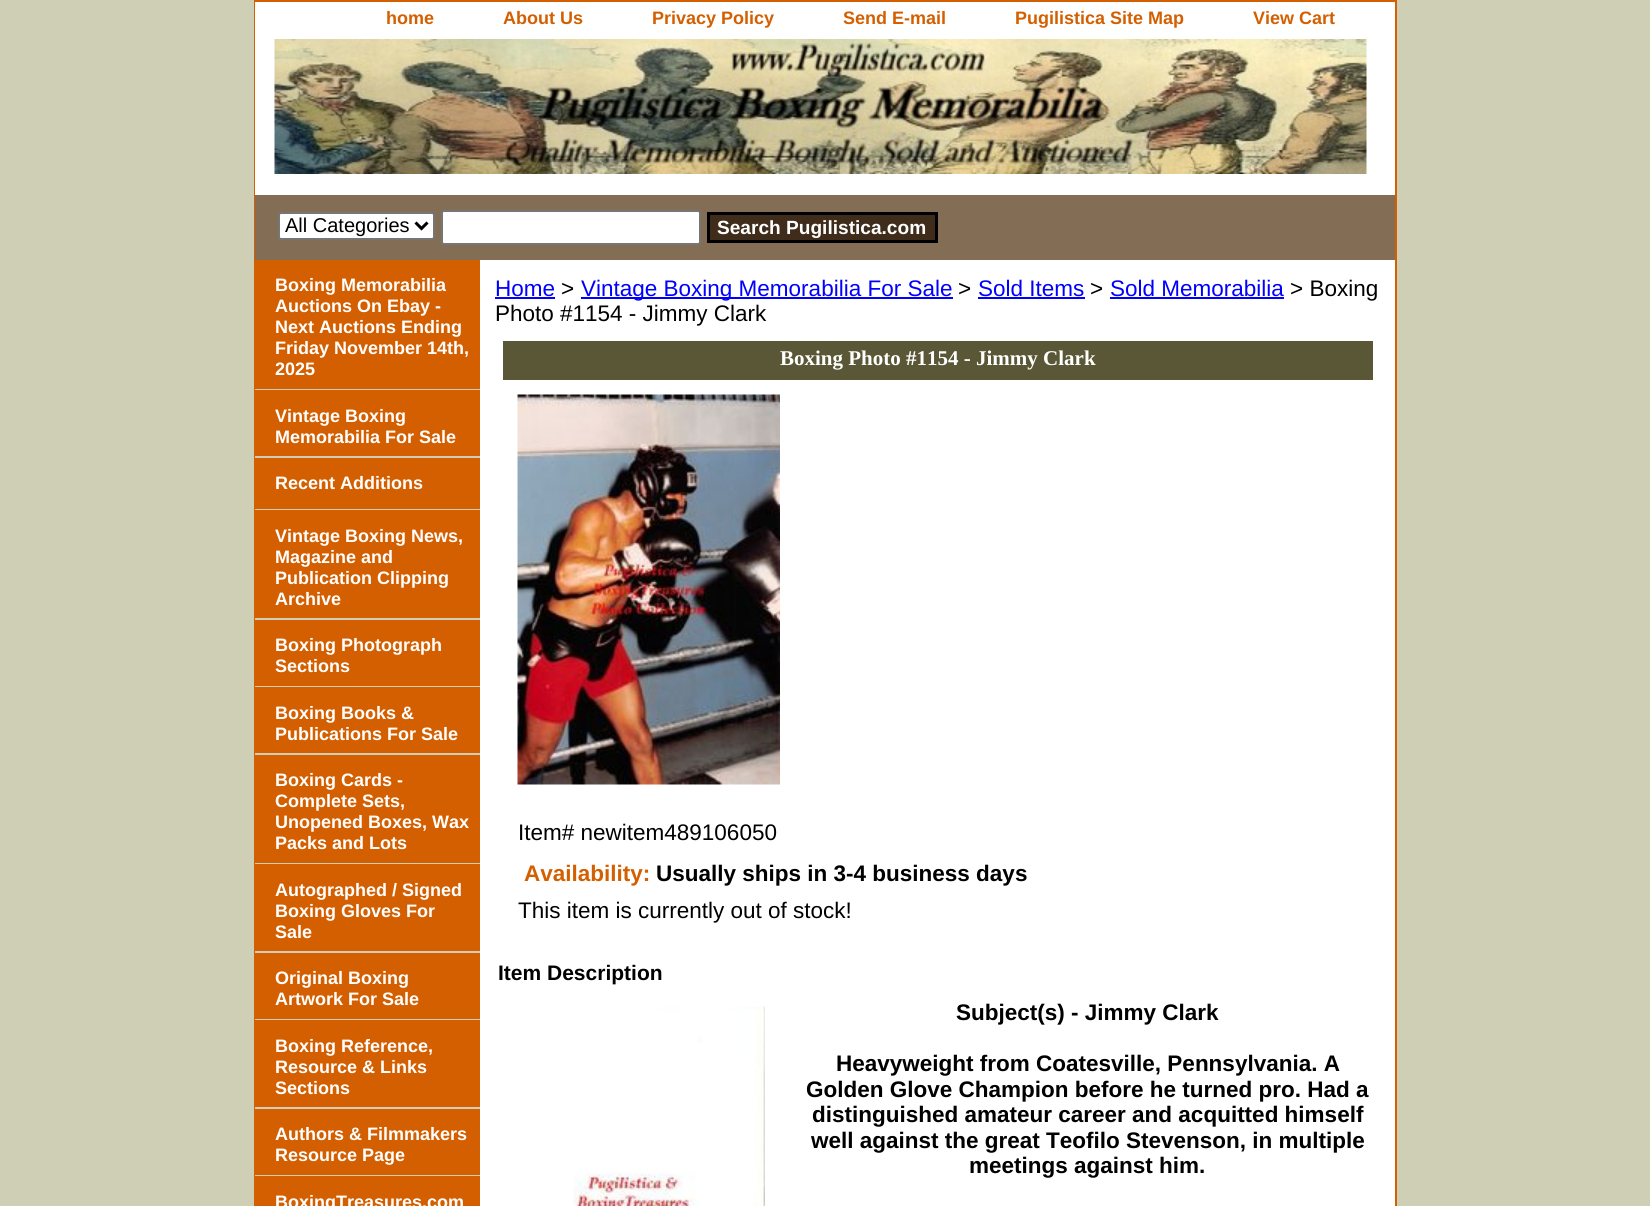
import math
import cairo


def use_color(cr, r, g, b):
  cr.set_source_rgb(r / 255, g / 255, b / 255)

def text(cr, x, y, s, family, size, color, bold=False, italic=False):
  cr.select_font_face(family, cairo.FONT_SLANT_ITALIC if italic else cairo.FONT_SLANT_NORMAL, cairo.FONT_WEIGHT_BOLD if bold else cairo.FONT_WEIGHT_NORMAL)
  cr.set_font_size(size)
  use_color(cr, *color)
  cr.move_to(x, y)
  cr.show_text(s)

def box(cr, x, y, w, h, *color):
  use_color(cr, *color)
  cr.rectangle(x, y, w, h)
  cr.fill()

def round_rect(cr, x, y, w, h, r):
  cr.new_sub_path()
  for i, (u, v) in enumerate([(x + w - r, y + h - r), (x + r, y + h - r), (x + r, y + r), (x + w - r, y + r)]):
    cr.arc(u, v, r, i * math.pi / 2, (i + 1) * math.pi / 2)
  cr.close_path()

def picture(cr, path, x, y, w, h):
  cr.save()
  cr.set_source_surface(cairo.ImageSurface.create_from_png(path), x, y)
  cr.rectangle(x, y, w, h)
  cr.fill()
  cr.restore()

def draw(cr):
  use_color(cr, 207, 207, 181)
  cr.paint()
  cr.rectangle(255, 1, 1141, 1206)
  use_color(cr, 212, 95, 0)
  cr.stroke()
  box(cr, 255, 2, 1140, 193, 255, 255, 255)
  picture(cr, "img_01.png", 274, 39, 1093, 135)
  box(cr, 255, 195, 1140, 65, 131, 109, 85)
  use_color(cr, 255, 255, 255)
  round_rect(cr, 279, 213, 155, 26, 2)
  cr.fill_preserve()
  use_color(cr, 118, 118, 118)
  cr.stroke()
  cr.new_path()
  cr.move_to(415.5, 222.5)
  cr.line_to(421.5, 228.5)
  cr.line_to(427.5, 222.5)
  use_color(cr, 0, 0, 0)
  cr.set_line_width(3)
  cr.stroke()
  use_color(cr, 255, 255, 255)
  round_rect(cr, 442, 211, 258, 33, 2)
  cr.fill_preserve()
  use_color(cr, 118, 118, 118)
  cr.set_line_width(2)
  cr.stroke()
  use_color(cr, 63, 44, 27)
  cr.rectangle(708.5, 213.5, 228, 28)
  cr.fill_preserve()
  use_color(cr, 0, 0, 0)
  cr.set_line_width(3)
  cr.stroke()
  box(cr, 480, 260, 915, 946, 255, 255, 255)
  box(cr, 256, 260, 224, 915, 212, 95, 0)
  box(cr, 255, 389, 225, 1, 207, 207, 181)
  box(cr, 255, 456, 225, 2, 207, 207, 181)
  box(cr, 255, 509, 225, 1, 207, 207, 181)
  box(cr, 255, 618, 225, 2, 207, 207, 181)
  box(cr, 255, 686, 225, 1, 207, 207, 181)
  box(cr, 255, 753, 225, 2, 207, 207, 181)
  box(cr, 255, 863, 225, 1, 207, 207, 181)
  box(cr, 255, 951, 225, 2, 207, 207, 181)
  box(cr, 255, 1019, 225, 1, 207, 207, 181)
  box(cr, 255, 1107, 225, 2, 207, 207, 181)
  box(cr, 255, 1175, 1, 1, 207, 207, 181)
  box(cr, 256, 1176, 224, 30, 212, 95, 0)
  box(cr, 495, 297, 60, 2, 0, 0, 255)
  box(cr, 581, 297, 372, 2, 0, 0, 255)
  box(cr, 978, 297, 107, 2, 0, 0, 255)
  box(cr, 1110, 297, 174, 2, 0, 0, 255)
  box(cr, 503, 341, 870, 39, 89, 87, 54)
  picture(cr, "img_02.png", 517, 394, 263, 391)
  picture(cr, "img_03.png", 573, 1006, 192, 200)
  text(cr, 386, 24, "home", "Liberation Sans", 18, (212, 95, 0), bold=True)
  text(cr, 503, 24, "About Us", "Liberation Sans", 18, (212, 95, 0), bold=True)
  text(cr, 652, 24, "Privacy Policy", "Liberation Sans", 18, (212, 95, 0), bold=True)
  text(cr, 843, 24, "Send E-mail", "Liberation Sans", 18, (212, 95, 0), bold=True)
  text(cr, 1015, 24, "Pugilistica Site Map", "Liberation Sans", 18, (212, 95, 0), bold=True)
  text(cr, 1253, 24, "View Cart", "Liberation Sans", 18, (212, 95, 0), bold=True)
  text(cr, 285, 232, "All Categories", "Liberation Sans", 20, (0, 0, 0))
  text(cr, 717, 234, "Search Pugilistica.com", "Liberation Sans", 19.1, (255, 255, 255), bold=True)
  text(cr, 275, 291, "Boxing Memorabilia", "Liberation Sans", 18, (255, 255, 255), bold=True)
  text(cr, 275, 312, "Auctions On Ebay -", "Liberation Sans", 18, (255, 255, 255), bold=True)
  text(cr, 275, 333, "Next Auctions Ending", "Liberation Sans", 18, (255, 255, 255), bold=True)
  text(cr, 275, 354, "Friday November 14th,", "Liberation Sans", 18, (255, 255, 255), bold=True)
  text(cr, 275, 375, "2025", "Liberation Sans", 18, (255, 255, 255), bold=True)
  text(cr, 275, 422, "Vintage Boxing", "Liberation Sans", 18, (255, 255, 255), bold=True)
  text(cr, 275, 443, "Memorabilia For Sale", "Liberation Sans", 18, (255, 255, 255), bold=True)
  text(cr, 275, 489, "Recent Additions", "Liberation Sans", 18, (255, 255, 255), bold=True)
  text(cr, 275, 542, "Vintage Boxing News,", "Liberation Sans", 18, (255, 255, 255), bold=True)
  text(cr, 275, 563, "Magazine and", "Liberation Sans", 18, (255, 255, 255), bold=True)
  text(cr, 275, 584, "Publication Clipping", "Liberation Sans", 18, (255, 255, 255), bold=True)
  text(cr, 275, 605, "Archive", "Liberation Sans", 18, (255, 255, 255), bold=True)
  text(cr, 275, 651, "Boxing Photograph", "Liberation Sans", 18, (255, 255, 255), bold=True)
  text(cr, 275, 672, "Sections", "Liberation Sans", 18, (255, 255, 255), bold=True)
  text(cr, 275, 719, "Boxing Books &", "Liberation Sans", 18, (255, 255, 255), bold=True)
  text(cr, 275, 740, "Publications For Sale", "Liberation Sans", 18, (255, 255, 255), bold=True)
  text(cr, 275, 786, "Boxing Cards -", "Liberation Sans", 18, (255, 255, 255), bold=True)
  text(cr, 275, 807, "Complete Sets,", "Liberation Sans", 18, (255, 255, 255), bold=True)
  text(cr, 275, 828, "Unopened Boxes, Wax", "Liberation Sans", 18, (255, 255, 255), bold=True)
  text(cr, 275, 849, "Packs and Lots", "Liberation Sans", 18, (255, 255, 255), bold=True)
  text(cr, 275, 896, "Autographed / Signed", "Liberation Sans", 18, (255, 255, 255), bold=True)
  text(cr, 275, 917, "Boxing Gloves For", "Liberation Sans", 18, (255, 255, 255), bold=True)
  text(cr, 275, 938, "Sale", "Liberation Sans", 18, (255, 255, 255), bold=True)
  text(cr, 275, 984, "Original Boxing", "Liberation Sans", 18, (255, 255, 255), bold=True)
  text(cr, 275, 1005, "Artwork For Sale", "Liberation Sans", 18, (255, 255, 255), bold=True)
  text(cr, 275, 1052, "Boxing Reference,", "Liberation Sans", 18, (255, 255, 255), bold=True)
  text(cr, 275, 1073, "Resource & Links", "Liberation Sans", 18, (255, 255, 255), bold=True)
  text(cr, 275, 1094, "Sections", "Liberation Sans", 18, (255, 255, 255), bold=True)
  text(cr, 275, 1140, "Authors & Filmmakers", "Liberation Sans", 18, (255, 255, 255), bold=True)
  text(cr, 275, 1161, "Resource Page", "Liberation Sans", 18, (255, 255, 255), bold=True)
  text(cr, 275, 1208, "BoxingTreasures.com", "Liberation Sans", 18, (255, 255, 255), bold=True)
  text(cr, 495, 296, "Home", "Liberation Sans", 22.5, (0, 0, 255))
  text(cr, 561, 296, ">", "Liberation Sans", 22.5, (0, 0, 0))
  text(cr, 581, 296, "Vintage Boxing Memorabilia For Sale", "Liberation Sans", 22.5, (0, 0, 255))
  text(cr, 958, 296, ">", "Liberation Sans", 22.5, (0, 0, 0))
  text(cr, 978, 296, "Sold Items", "Liberation Sans", 22.5, (0, 0, 255))
  text(cr, 1090, 296, ">", "Liberation Sans", 22.5, (0, 0, 0))
  text(cr, 1110, 296, "Sold Memorabilia", "Liberation Sans", 22.5, (0, 0, 255))
  text(cr, 1290, 296, "> Boxing", "Liberation Sans", 22.5, (0, 0, 0))
  text(cr, 495, 321, "Photo #1154 - Jimmy Clark", "Liberation Sans", 22.5, (0, 0, 0))
  text(cr, 780, 365, "Boxing Photo #1154 - Jimmy Clark", "Liberation Serif", 21, (255, 255, 255), bold=True)
  text(cr, 518, 840, "Item# newitem489106050", "Liberation Sans", 22.5, (0, 0, 0))
  text(cr, 524, 881, "Availability:", "Liberation Sans", 22.5, (212, 95, 0), bold=True)
  text(cr, 656, 881, "Usually ships in 3-4 business days", "Liberation Sans", 22.5, (0, 0, 0), bold=True)
  text(cr, 518, 918, "This item is currently out of stock!", "Liberation Sans", 22.5, (0, 0, 0))
  text(cr, 498, 980, "Item Description", "Liberation Sans", 21, (0, 0, 0), bold=True)
  text(cr, 956, 1020, "Subject(s) - Jimmy Clark", "Liberation Sans", 22.5, (0, 0, 0), bold=True)
  text(cr, 836, 1071, "Heavyweight from Coatesville, Pennsylvania. A", "Liberation Sans", 22.5, (0, 0, 0), bold=True)
  text(cr, 806, 1097, "Golden Glove Champion before he turned pro. Had a", "Liberation Sans", 22.5, (0, 0, 0), bold=True)
  text(cr, 812, 1122, "distinguished amateur career and acquitted himself", "Liberation Sans", 22.5, (0, 0, 0), bold=True)
  text(cr, 811, 1148, "well against the great Teofilo Stevenson, in multiple", "Liberation Sans", 22.5, (0, 0, 0), bold=True)
  text(cr, 969, 1173, "meetings against him.", "Liberation Sans", 22.5, (0, 0, 0), bold=True)


surface = cairo.ImageSurface(cairo.FORMAT_RGB24, 1650, 1206)
cr = cairo.Context(surface)
options = cairo.FontOptions()
options.set_hint_metrics(cairo.HINT_METRICS_OFF)
options.set_hint_style(cairo.HINT_STYLE_NONE)
cr.set_font_options(options)
cr.set_miter_limit(4)
draw(cr)
surface.write_to_png("out.png")
